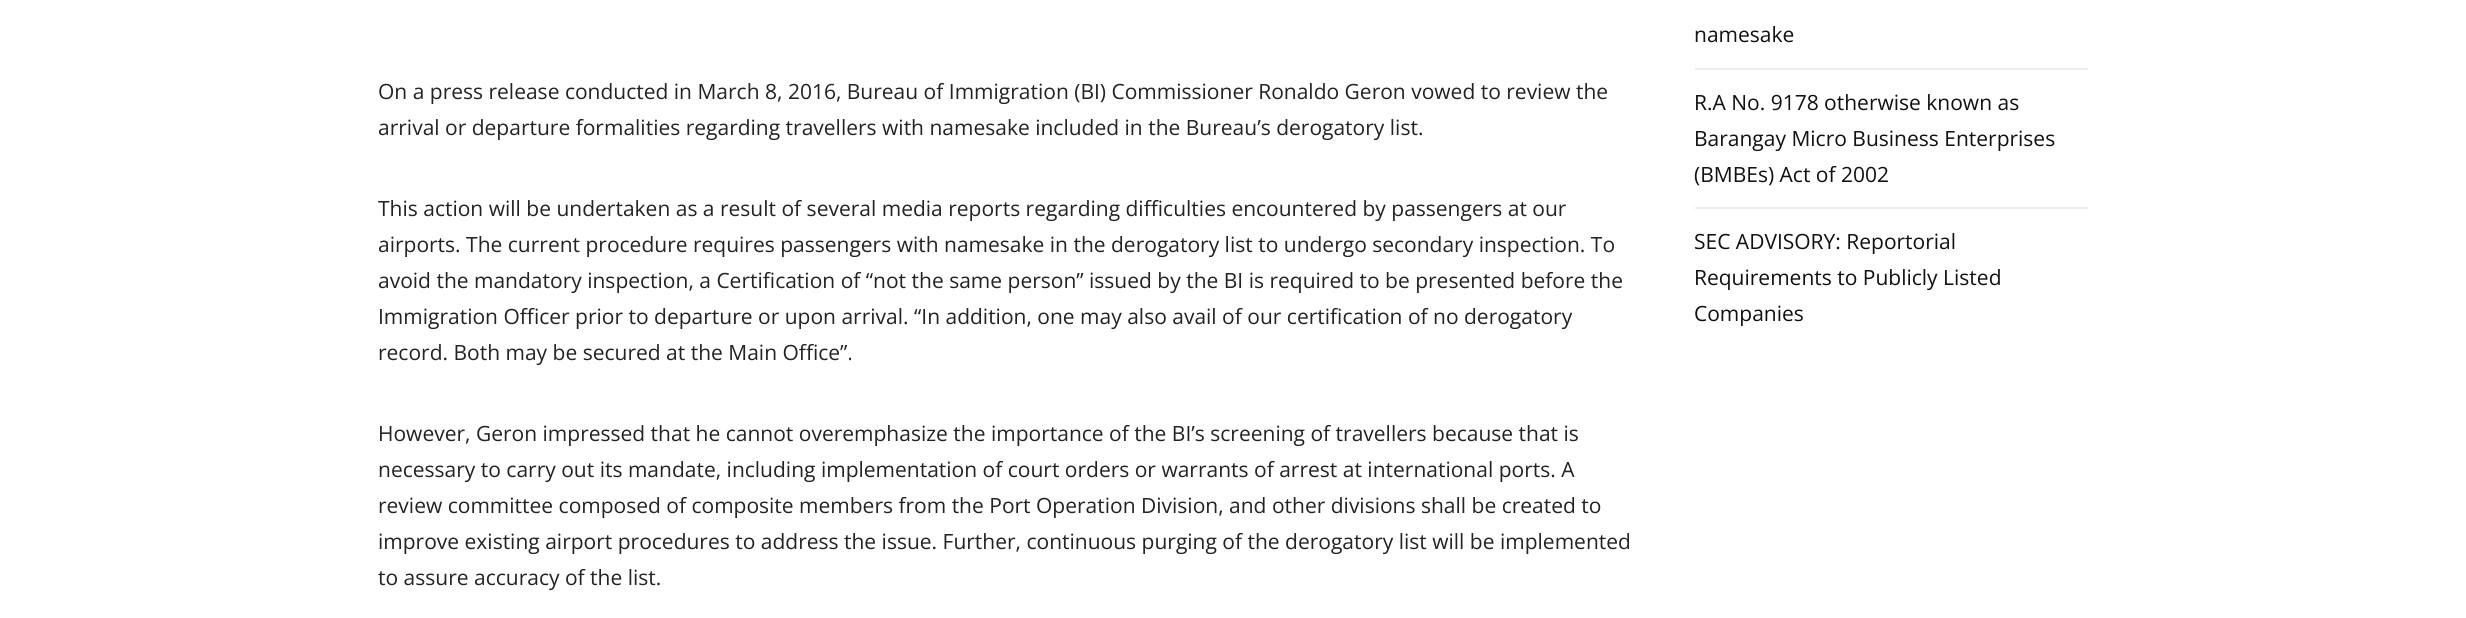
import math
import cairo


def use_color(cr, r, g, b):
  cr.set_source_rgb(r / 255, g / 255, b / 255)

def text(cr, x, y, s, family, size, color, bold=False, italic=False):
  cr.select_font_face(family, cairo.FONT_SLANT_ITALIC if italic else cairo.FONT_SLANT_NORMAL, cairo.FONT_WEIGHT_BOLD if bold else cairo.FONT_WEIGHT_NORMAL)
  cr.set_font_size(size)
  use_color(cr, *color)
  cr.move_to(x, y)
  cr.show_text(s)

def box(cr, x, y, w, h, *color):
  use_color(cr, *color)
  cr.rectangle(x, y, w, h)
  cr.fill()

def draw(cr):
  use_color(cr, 255, 255, 255)
  cr.paint()
  box(cr, 1695, 68, 393, 2, 238, 238, 238)
  box(cr, 1695, 207, 393, 2, 238, 238, 238)
  text(cr, 378, 99, "On a press release conducted in March 8, 2016, Bureau of Immigration (BI) Commissioner Ronaldo Geron vowed to review the", "Open Sans", 21, (34, 35, 35))
  text(cr, 378, 135, "arrival or departure formalities regarding travellers with namesake included in the Bureau’s derogatory list.", "Open Sans", 21, (34, 35, 35))
  text(cr, 378, 216, "This action will be undertaken as a result of several media reports regarding difficulties encountered by passengers at our", "Open Sans", 21, (34, 35, 35))
  text(cr, 378, 252, "airports. The current procedure requires passengers with namesake in the derogatory list to undergo secondary inspection. To", "Open Sans", 21, (34, 35, 35))
  text(cr, 378, 288, "avoid the mandatory inspection, a Certification of “not the same person” issued by the BI is required to be presented before the", "Open Sans", 21, (34, 35, 35))
  text(cr, 378, 324, "Immigration Officer prior to departure or upon arrival. “In addition, one may also avail of our certification of no derogatory", "Open Sans", 21, (34, 35, 35))
  text(cr, 378, 360, "record. Both may be secured at the Main Office”.", "Open Sans", 21, (34, 35, 35))
  text(cr, 378, 441, "However, Geron impressed that he cannot overemphasize the importance of the BI’s screening of travellers because that is", "Open Sans", 21, (34, 35, 35))
  text(cr, 378, 477, "necessary to carry out its mandate, including implementation of court orders or warrants of arrest at international ports. A", "Open Sans", 21, (34, 35, 35))
  text(cr, 378, 513, "review committee composed of composite members from the Port Operation Division, and other divisions shall be created to", "Open Sans", 21, (34, 35, 35))
  text(cr, 378, 549, "improve existing airport procedures to address the issue. Further, continuous purging of the derogatory list will be implemented", "Open Sans", 21, (34, 35, 35))
  text(cr, 378, 585, "to assure accuracy of the list.", "Open Sans", 21, (34, 35, 35))
  text(cr, 1694, 42, "namesake", "Open Sans", 21, (17, 17, 17))
  text(cr, 1694, 110, "R.A No. 9178 otherwise known as", "Open Sans", 21, (17, 17, 17))
  text(cr, 1694, 146, "Barangay Micro Business Enterprises", "Open Sans", 21, (17, 17, 17))
  text(cr, 1694, 182, "(BMBEs) Act of 2002", "Open Sans", 21, (17, 17, 17))
  text(cr, 1694, 249, "SEC ADVISORY: Reportorial", "Open Sans", 21, (17, 17, 17))
  text(cr, 1694, 285, "Requirements to Publicly Listed", "Open Sans", 21, (17, 17, 17))
  text(cr, 1694, 321, "Companies", "Open Sans", 21, (17, 17, 17))


surface = cairo.ImageSurface(cairo.FORMAT_RGB24, 2466, 618)
cr = cairo.Context(surface)
options = cairo.FontOptions()
options.set_hint_metrics(cairo.HINT_METRICS_OFF)
options.set_hint_style(cairo.HINT_STYLE_NONE)
cr.set_font_options(options)
cr.set_miter_limit(4)
draw(cr)
surface.write_to_png("out.png")
